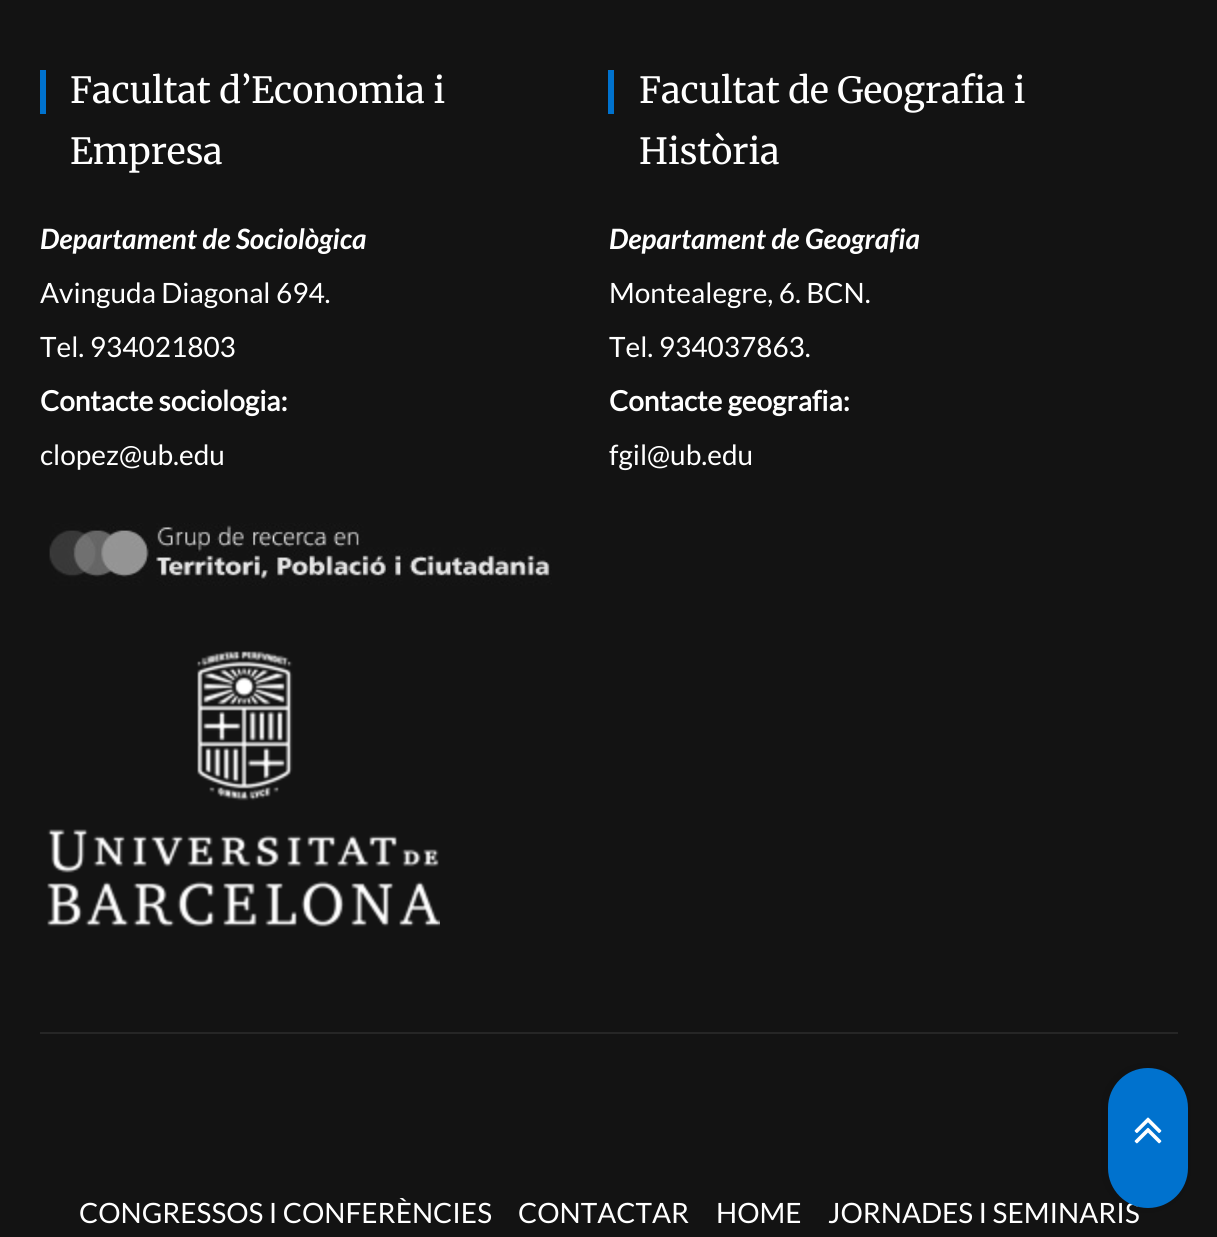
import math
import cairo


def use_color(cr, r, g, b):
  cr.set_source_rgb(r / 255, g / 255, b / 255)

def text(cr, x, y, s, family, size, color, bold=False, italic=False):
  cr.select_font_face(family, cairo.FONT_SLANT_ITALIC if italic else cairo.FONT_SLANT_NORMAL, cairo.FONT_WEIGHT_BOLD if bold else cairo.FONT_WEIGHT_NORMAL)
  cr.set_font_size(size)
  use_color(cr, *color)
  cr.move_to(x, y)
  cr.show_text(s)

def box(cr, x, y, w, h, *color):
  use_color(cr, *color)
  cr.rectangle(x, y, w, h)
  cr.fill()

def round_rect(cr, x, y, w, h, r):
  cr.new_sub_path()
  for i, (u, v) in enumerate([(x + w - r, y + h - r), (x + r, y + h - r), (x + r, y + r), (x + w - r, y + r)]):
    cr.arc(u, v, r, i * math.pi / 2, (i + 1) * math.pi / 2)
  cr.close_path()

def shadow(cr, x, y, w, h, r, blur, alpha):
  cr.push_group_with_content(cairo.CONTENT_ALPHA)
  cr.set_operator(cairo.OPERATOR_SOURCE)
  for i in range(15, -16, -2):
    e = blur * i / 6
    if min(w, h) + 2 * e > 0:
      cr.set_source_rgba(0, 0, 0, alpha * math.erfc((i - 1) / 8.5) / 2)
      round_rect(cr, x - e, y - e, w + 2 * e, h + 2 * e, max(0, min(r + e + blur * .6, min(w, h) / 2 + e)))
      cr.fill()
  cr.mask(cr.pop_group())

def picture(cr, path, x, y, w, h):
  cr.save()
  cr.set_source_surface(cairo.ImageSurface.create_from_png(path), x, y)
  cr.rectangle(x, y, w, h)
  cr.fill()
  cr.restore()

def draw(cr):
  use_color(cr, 19, 19, 19)
  cr.paint()
  box(cr, 40, 70, 6, 44, 0, 114, 206)
  box(cr, 608, 70, 6, 44, 0, 114, 206)
  picture(cr, "img_01.png", 49, 523, 503, 63)
  picture(cr, "img_02.png", 47, 651, 393, 276)
  box(cr, 40, 1032, 1138, 2, 38, 38, 38)
  use_color(cr, 0, 0, 0)
  shadow(cr, 1106, 1068, 80, 140, 40, 10, 0.1)
  text(cr, 70, 103, "Facultat d’Economia i", "Merriweather Light", 36, (255, 255, 255))
  text(cr, 70, 164, "Empresa", "Merriweather Light", 36, (255, 255, 255))
  text(cr, 40, 249, "Departament de Sociològica", "Lato", 28, (255, 255, 255), bold=True, italic=True)
  text(cr, 40, 303, "Avinguda Diagonal 694.", "Lato", 28, (255, 255, 255))
  text(cr, 40, 357, "Tel. 934021803", "Lato", 28, (255, 255, 255))
  text(cr, 40, 411, "Contacte sociologia:", "Lato", 28, (255, 255, 255), bold=True)
  text(cr, 40, 465, "clopez@ub.edu", "Lato", 28, (255, 255, 255))
  text(cr, 639, 103, "Facultat de Geografia i", "Merriweather Light", 36, (255, 255, 255))
  text(cr, 639, 164, "Història", "Merriweather Light", 36, (255, 255, 255))
  text(cr, 609, 249, "Departament de Geografia", "Lato", 28, (255, 255, 255), bold=True, italic=True)
  text(cr, 609, 303, "Montealegre, 6. BCN.", "Lato", 28, (255, 255, 255))
  text(cr, 609, 357, "Tel. 934037863.", "Lato", 28, (255, 255, 255))
  text(cr, 609, 411, "Contacte geografia:", "Lato", 28, (255, 255, 255), bold=True)
  text(cr, 609, 465, "fgil@ub.edu", "Lato", 28, (255, 255, 255))
  text(cr, 79, 1223, "CONGRESSOS I CONFERÈNCIES", "Lato", 28, (255, 255, 255))
  text(cr, 518, 1223, "CONTACTAR", "Lato", 28, (255, 255, 255))
  text(cr, 716, 1223, "HOME", "Lato", 28, (255, 255, 255))
  text(cr, 828, 1223, "JORNADES I SEMINARIS", "Lato", 28, (255, 255, 255))
  use_color(cr, 0, 114, 206)
  round_rect(cr, 1110, 1070, 76, 136, 38)
  cr.fill_preserve()
  cr.set_line_width(4)
  cr.stroke()
  picture(cr, "img_03.png", 1134, 1117, 28, 27)


surface = cairo.ImageSurface(cairo.FORMAT_RGB24, 1217, 1237)
cr = cairo.Context(surface)
options = cairo.FontOptions()
options.set_hint_metrics(cairo.HINT_METRICS_OFF)
options.set_hint_style(cairo.HINT_STYLE_NONE)
cr.set_font_options(options)
cr.set_miter_limit(4)
draw(cr)
surface.write_to_png("out.png")
